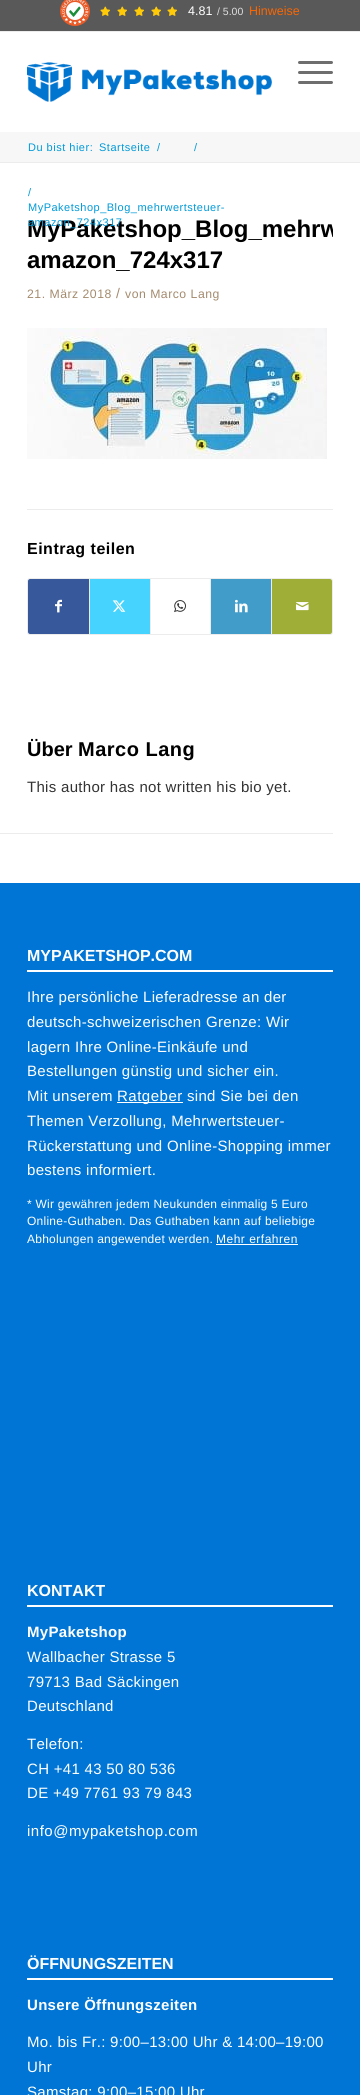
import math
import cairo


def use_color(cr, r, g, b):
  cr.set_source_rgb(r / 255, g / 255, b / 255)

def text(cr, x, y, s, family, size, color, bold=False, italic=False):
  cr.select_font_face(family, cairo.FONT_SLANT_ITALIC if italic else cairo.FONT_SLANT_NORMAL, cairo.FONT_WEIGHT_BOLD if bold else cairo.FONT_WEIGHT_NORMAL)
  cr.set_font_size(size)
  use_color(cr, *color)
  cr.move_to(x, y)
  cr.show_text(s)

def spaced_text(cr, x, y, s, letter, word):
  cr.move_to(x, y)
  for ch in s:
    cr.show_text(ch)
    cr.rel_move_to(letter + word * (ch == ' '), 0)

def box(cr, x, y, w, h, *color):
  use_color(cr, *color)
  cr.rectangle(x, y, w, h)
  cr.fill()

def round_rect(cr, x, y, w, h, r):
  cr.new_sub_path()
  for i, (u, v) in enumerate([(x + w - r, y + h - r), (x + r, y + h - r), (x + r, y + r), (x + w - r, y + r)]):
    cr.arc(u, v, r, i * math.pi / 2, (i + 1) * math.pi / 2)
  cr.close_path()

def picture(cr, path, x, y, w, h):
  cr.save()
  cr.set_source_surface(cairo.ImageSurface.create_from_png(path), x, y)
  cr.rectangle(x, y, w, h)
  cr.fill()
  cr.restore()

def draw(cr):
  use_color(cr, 89, 89, 89)
  cr.paint()
  picture(cr, "img_01.png", 60, 0, 30, 26)
  picture(cr, "img_02.png", 100, 6, 10, 10)
  picture(cr, "img_02.png", 117, 6, 10, 10)
  picture(cr, "img_02.png", 134, 6, 10, 10)
  picture(cr, "img_02.png", 151, 6, 10, 10)
  picture(cr, "img_02.png", 167, 6, 10, 10)
  box(cr, 0, 32, 360, 851, 255, 255, 255)
  box(cr, 0, 31, 360, 1, 236, 236, 236)
  picture(cr, "img_03.png", 27, 62, 245, 40)
  use_color(cr, 110, 110, 110)
  round_rect(cr, 298, 71, 35, 3, 1.5)
  cr.fill()
  round_rect(cr, 298, 61, 35, 3, 1.5)
  cr.fill()
  round_rect(cr, 298, 81, 35, 3, 1.5)
  cr.fill()
  box(cr, 0, 132, 360, 30, 247, 247, 247)
  box(cr, 0, 162, 360, 1, 236, 236, 236)
  picture(cr, "img_04.png", 27, 328, 300, 131)
  box(cr, 27, 509, 306, 1, 236, 236, 236)
  round_rect(cr, 27.5, 578.5, 305, 56, 2.5)
  cr.set_line_width(1)
  cr.stroke()
  use_color(cr, 55, 88, 155)
  cr.new_path()
  cr.move_to(30, 579)
  cr.line_to(89, 579)
  cr.line_to(89, 634)
  cr.line_to(30, 634)
  cr.curve_to(29, 634, 28, 633, 28, 632)
  cr.line_to(28, 581)
  cr.curve_to(28, 580, 29, 579, 30, 579)
  cr.close_path()
  cr.fill()
  picture(cr, "img_05.png", 55, 599, 7, 14)
  box(cr, 89, 579, 1, 55, 236, 236, 236)
  box(cr, 90, 579, 60, 55, 70, 212, 254)
  picture(cr, "img_06.png", 112, 600, 14, 12)
  box(cr, 150, 579, 1, 55, 236, 236, 236)
  picture(cr, "img_07.png", 174, 600, 12, 13)
  box(cr, 210, 579, 1, 55, 236, 236, 236)
  box(cr, 211, 579, 60, 55, 65, 156, 202)
  picture(cr, "img_08.png", 235, 599, 13, 14)
  box(cr, 271, 579, 1, 55, 236, 236, 236)
  use_color(cr, 159, 174, 55)
  cr.new_path()
  cr.move_to(272, 579)
  cr.line_to(330, 579)
  cr.curve_to(331, 579, 332, 580, 332, 581)
  cr.line_to(332, 632)
  cr.curve_to(332, 633, 331, 634, 330, 634)
  cr.line_to(272, 634)
  cr.close_path()
  cr.fill()
  picture(cr, "img_09.png", 296, 602, 13, 9)
  box(cr, 0, 833, 333, 1, 236, 236, 236)
  box(cr, 0, 883, 360, 1212, 0, 117, 213)
  box(cr, 27, 970, 306, 2, 255, 255, 255)
  box(cr, 117, 1102, 66, 1, 255, 255, 255)
  box(cr, 216, 1244, 82, 1, 255, 255, 255)
  box(cr, 27, 1605, 306, 2, 255, 255, 255)
  box(cr, 27, 1978, 306, 2, 255, 255, 255)
  text(cr, 188, 15, "4.81", "Liberation Sans", 12.5, (255, 255, 255))
  text(cr, 217, 15, "/ 5.00", "Liberation Sans", 10.5, (222, 222, 222))
  text(cr, 249, 15, "Hinweise", "Liberation Sans", 12.5, (248, 102, 3))
  cr.set_font_size(11)
  use_color(cr, 0, 154, 217)
  spaced_text(cr, 28, 151, "Du bist hier:", 0.5, 0)
  spaced_text(cr, 99, 151, "Startseite", 0.5, 0)
  spaced_text(cr, 157, 151, "/", 0.5, 0)
  spaced_text(cr, 194, 151, "/", 0.5, 0)
  spaced_text(cr, 28, 196, "/", 0.5, 0)
  spaced_text(cr, 28, 211, "MyPaketshop_Blog_mehrwertsteuer-", 0.5, 0)
  cr.save()
  cr.rectangle(27, 213, 306, 482)
  cr.clip()
  text(cr, 27, 237, "MyPaketshop_Blog_mehrw", "Liberation Sans", 24, (0, 0, 0), bold=True)
  cr.restore()
  spaced_text(cr, 28, 226, "amazon_724x317", 0.5, 0)
  text(cr, 27, 268, "amazon_724x317", "Liberation Sans", 24, (0, 0, 0), bold=True)
  cr.select_font_face("Liberation Sans")
  cr.set_font_size(12.25)
  use_color(cr, 164, 139, 110)
  spaced_text(cr, 27, 298, "21. März 2018", 0.5, 0)
  cr.set_font_size(14)
  spaced_text(cr, 116, 298, "/", 0.5, 0)
  cr.set_font_size(12.25)
  spaced_text(cr, 125, 298, "von Marco Lang", 0.5, 0)
  cr.select_font_face("Liberation Sans", cairo.FONT_SLANT_NORMAL, cairo.FONT_WEIGHT_BOLD)
  cr.set_font_size(16)
  use_color(cr, 0, 0, 0)
  spaced_text(cr, 27, 554, "Eintrag teilen", 0.5, 0)
  text(cr, 27, 756, "Über", "Liberation Sans", 20, (0, 0, 0), bold=True)
  spaced_text(cr, 78, 756, "Marco Lang", 0.5, 0)
  cr.select_font_face("Liberation Sans")
  cr.set_font_size(15)
  use_color(cr, 51, 51, 51)
  spaced_text(cr, 27, 792, "This author has not written his bio yet.", 0.3, 0)
  text(cr, 27, 961, "MYPAKETSHOP.COM", "Liberation Sans", 16, (255, 255, 255), bold=True)
  cr.select_font_face("Liberation Sans")
  cr.set_font_size(15)
  spaced_text(cr, 27, 1002, "Ihre persönliche Lieferadresse an der", 0.3, 0)
  spaced_text(cr, 27, 1027, "deutsch-schweizerischen Grenze: Wir", 0.3, 0)
  spaced_text(cr, 27, 1052, "lagern Ihre Online-Einkäufe und", 0.3, 0)
  spaced_text(cr, 27, 1076, "Bestellungen günstig und sicher ein.", 0.3, 0)
  spaced_text(cr, 27, 1101, "Mit unserem", 0.3, 0)
  spaced_text(cr, 117, 1101, "Ratgeber", 0.5, 0)
  spaced_text(cr, 187, 1101, "sind Sie bei den", 0.3, 0)
  spaced_text(cr, 27, 1126, "Themen Verzollung, Mehrwertsteuer-", 0.3, 0)
  spaced_text(cr, 27, 1151, "Rückerstattung und Online-Shopping immer", 0.3, 0)
  spaced_text(cr, 27, 1175, "bestens informiert.", 0.3, 0)
  cr.set_font_size(12)
  spaced_text(cr, 27, 1208, "* Wir gewähren jedem Neukunden einmalig 5 Euro", 0.25, 0)
  spaced_text(cr, 27, 1225, "Online-Guthaben. Das Guthaben kann auf beliebige", 0.25, 0)
  spaced_text(cr, 27, 1243, "Abholungen angewendet werden.", 0.25, 0)
  spaced_text(cr, 216, 1243, "Mehr erfahren", 0.5, 0)
  text(cr, 27, 1596, "KONTAKT", "Liberation Sans", 16, (255, 255, 255), bold=True)
  cr.set_font_size(15)
  spaced_text(cr, 27, 1637, "MyPaketshop", 0.3, 0)
  cr.select_font_face("Liberation Sans")
  spaced_text(cr, 27, 1662, "Wallbacher Strasse 5", 0.3, 0)
  spaced_text(cr, 27, 1687, "79713 Bad Säckingen", 0.3, 0)
  spaced_text(cr, 27, 1711, "Deutschland", 0.3, 0)
  spaced_text(cr, 27, 1749, "Telefon:", 0.3, 0)
  spaced_text(cr, 27, 1774, "CH +41 43 50 80 536", 0.3, 0)
  spaced_text(cr, 27, 1798, "DE +49 7761 93 79 843", 0.3, 0)
  spaced_text(cr, 27, 1836, "info@mypaketshop.com", 0.5, 0)
  text(cr, 27, 1969, "ÖFFNUNGSZEITEN", "Liberation Sans", 16, (255, 255, 255), bold=True)
  cr.set_font_size(15)
  spaced_text(cr, 27, 2010, "Unsere Öffnungszeiten", 0.3, 0)
  cr.select_font_face("Liberation Sans")
  spaced_text(cr, 27, 2047, "Mo. bis Fr.: 9:00–13:00 Uhr & 14:00–19:00", 0.3, 0)
  spaced_text(cr, 27, 2072, "Uhr", 0.3, 0)
  spaced_text(cr, 27, 2097, "Samstag: 9:00–15:00 Uhr", 0.3, 0)


surface = cairo.ImageSurface(cairo.FORMAT_RGB24, 360, 2095)
cr = cairo.Context(surface)
options = cairo.FontOptions()
options.set_hint_metrics(cairo.HINT_METRICS_OFF)
options.set_hint_style(cairo.HINT_STYLE_NONE)
cr.set_font_options(options)
cr.set_miter_limit(4)
draw(cr)
surface.write_to_png("out.png")
